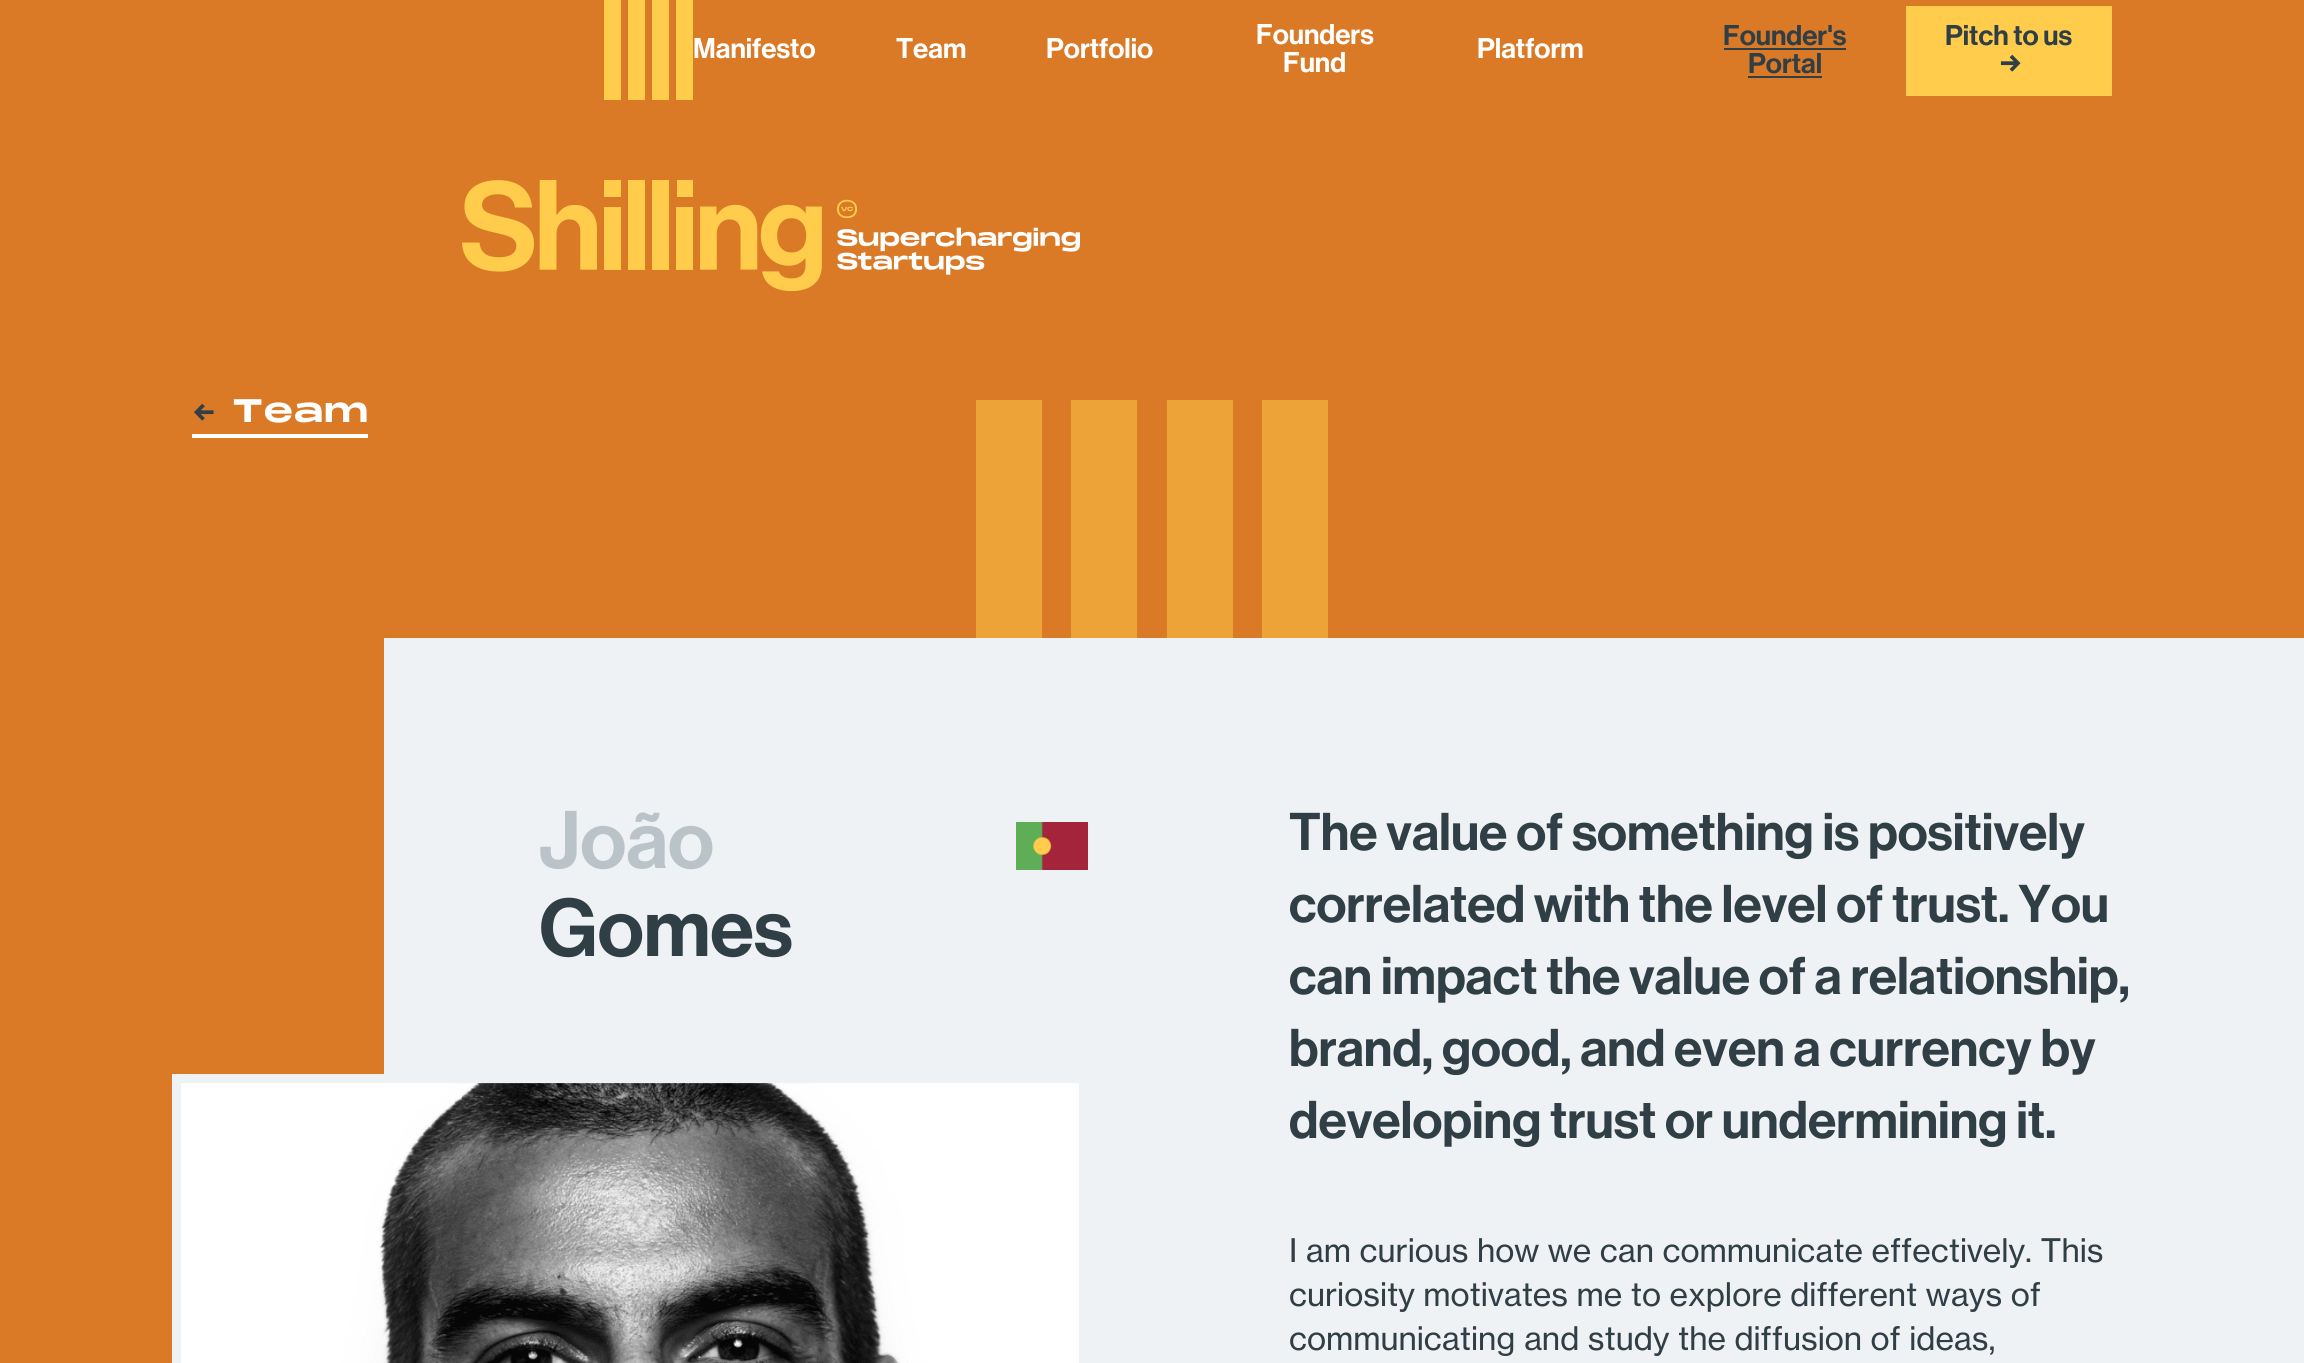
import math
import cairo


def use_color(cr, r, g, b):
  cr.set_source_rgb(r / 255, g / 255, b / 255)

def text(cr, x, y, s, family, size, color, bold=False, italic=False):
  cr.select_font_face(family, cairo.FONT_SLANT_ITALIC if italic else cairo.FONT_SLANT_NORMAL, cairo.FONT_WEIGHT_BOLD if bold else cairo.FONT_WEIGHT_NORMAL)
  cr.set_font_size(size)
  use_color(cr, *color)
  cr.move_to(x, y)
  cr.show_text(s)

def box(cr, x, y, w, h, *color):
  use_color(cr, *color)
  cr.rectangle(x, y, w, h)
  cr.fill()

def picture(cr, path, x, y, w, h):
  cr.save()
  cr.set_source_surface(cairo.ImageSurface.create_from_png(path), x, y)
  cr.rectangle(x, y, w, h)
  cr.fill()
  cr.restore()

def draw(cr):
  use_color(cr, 218, 122, 38)
  cr.paint()
  picture(cr, "img_01.png", 976, 400, 352, 238)
  box(cr, 628, 0, 17, 100, 255, 204, 75)
  box(cr, 652, 0, 17, 100, 255, 204, 75)
  box(cr, 676, 0, 17, 100, 255, 204, 75)
  box(cr, 604, 0, 17, 100, 255, 204, 75)
  box(cr, 1724, 48, 122, 2, 48, 62, 70)
  box(cr, 1748, 76, 74, 2, 48, 62, 70)
  box(cr, 1906, 6, 206, 90, 255, 204, 75)
  picture(cr, "img_02.png", 462, 180, 618, 112)
  box(cr, 192, 434, 176, 4, 255, 255, 255)
  box(cr, 384, 638, 1920, 725, 239, 242, 244)
  picture(cr, "img_03.png", 1016, 822, 72, 48)
  picture(cr, "img_04.png", 172, 1074, 907, 289)
  text(cr, 693, 58, "Manifesto", "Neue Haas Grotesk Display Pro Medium", 28, (255, 255, 255))
  text(cr, 896, 58, "Team", "Neue Haas Grotesk Display Pro Medium", 28, (255, 255, 255))
  text(cr, 1046, 58, "Portfolio", "Neue Haas Grotesk Display Pro Medium", 28, (255, 255, 255))
  text(cr, 1256, 44, "Founders", "Neue Haas Grotesk Display Pro Medium", 28, (255, 255, 255))
  text(cr, 1283, 72, "Fund", "Neue Haas Grotesk Display Pro Medium", 28, (255, 255, 255))
  text(cr, 1477, 58, "Platform", "Neue Haas Grotesk Display Pro Medium", 28, (255, 255, 255))
  text(cr, 1723, 45, "Founder's", "Neue Haas Grotesk Display Pro Medium", 28, (48, 62, 70))
  text(cr, 1748, 73, "Portal", "Neue Haas Grotesk Display Pro Medium", 28, (48, 62, 70))
  text(cr, 1945, 45, "Pitch to us", "Neue Haas Grotesk Display Pro Medium", 28, (48, 62, 70))
  text(cr, 1999, 73, "→", "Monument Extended", 28, (48, 62, 70), bold=True)
  text(cr, 192, 422, "←", "Monument Extended", 28, (48, 62, 70), bold=True)
  text(cr, 232, 422, "Team", "Monument Extended", 32, (255, 255, 255), bold=True)
  text(cr, 539, 868, "João", "Neue Haas Grotesk Display Pro Medium", 80, (186, 195, 200))
  text(cr, 539, 956, "Gomes", "Neue Haas Grotesk Display Pro Medium", 80, (48, 62, 70))
  text(cr, 1289, 850, "The value of something is positively", "Neue Haas Grotesk Display Pro Medium", 52, (48, 62, 70))
  text(cr, 1289, 922, "correlated with the level of trust. You", "Neue Haas Grotesk Display Pro Medium", 52, (48, 62, 70))
  text(cr, 1289, 994, "can impact the value of a relationship,", "Neue Haas Grotesk Display Pro Medium", 52, (48, 62, 70))
  text(cr, 1289, 1066, "brand, good, and even a currency by", "Neue Haas Grotesk Display Pro Medium", 52, (48, 62, 70))
  text(cr, 1289, 1138, "developing trust or undermining it.", "Neue Haas Grotesk Display Pro Medium", 52, (48, 62, 70))
  text(cr, 1289, 1262, "I am curious how we can communicate effectively. This", "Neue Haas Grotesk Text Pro", 32, (48, 62, 70))
  text(cr, 1289, 1306, "curiosity motivates me to explore different ways of", "Neue Haas Grotesk Text Pro", 32, (48, 62, 70))
  text(cr, 1289, 1350, "communicating and study the diffusion of ideas,", "Neue Haas Grotesk Text Pro", 32, (48, 62, 70))


surface = cairo.ImageSurface(cairo.FORMAT_RGB24, 2304, 1363)
cr = cairo.Context(surface)
options = cairo.FontOptions()
options.set_hint_metrics(cairo.HINT_METRICS_OFF)
options.set_hint_style(cairo.HINT_STYLE_NONE)
cr.set_font_options(options)
cr.set_miter_limit(4)
draw(cr)
surface.write_to_png("out.png")
